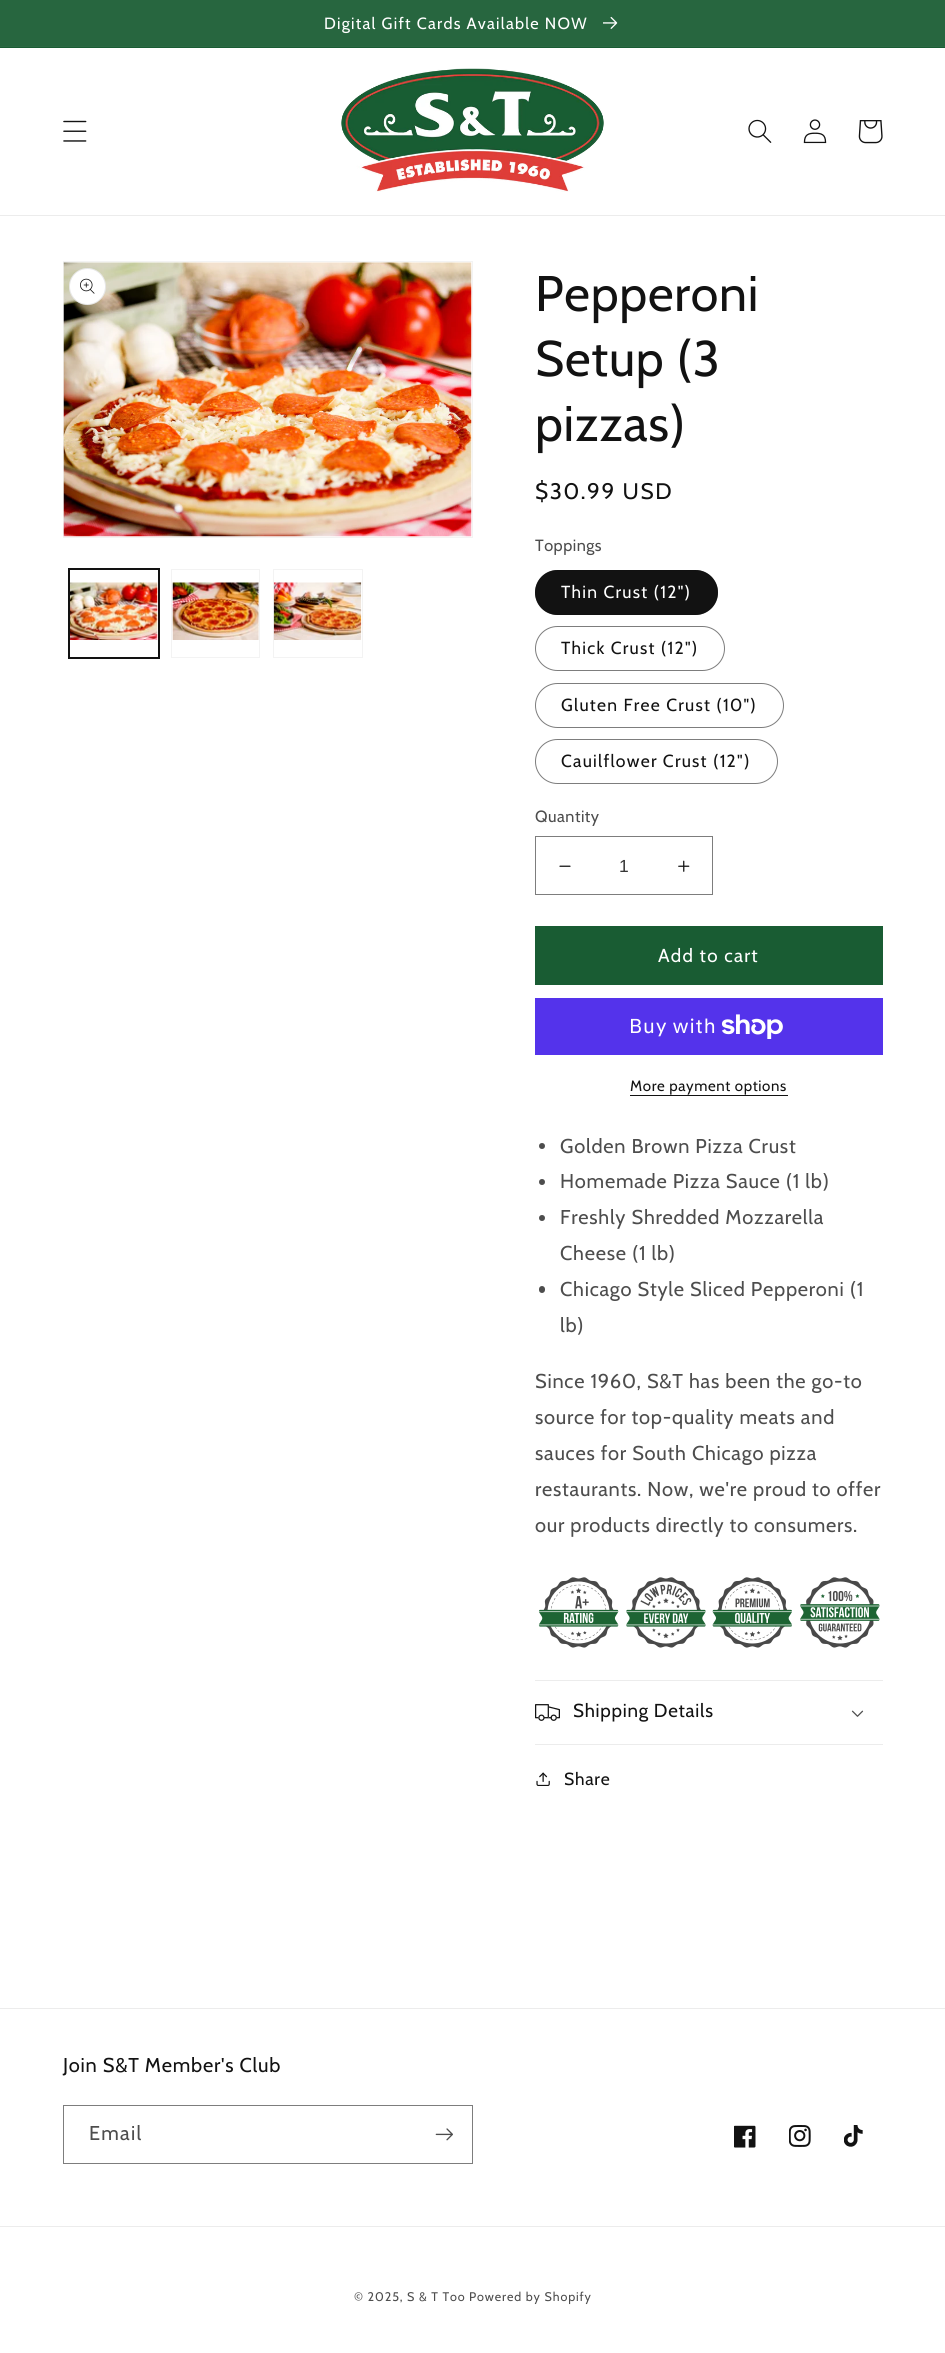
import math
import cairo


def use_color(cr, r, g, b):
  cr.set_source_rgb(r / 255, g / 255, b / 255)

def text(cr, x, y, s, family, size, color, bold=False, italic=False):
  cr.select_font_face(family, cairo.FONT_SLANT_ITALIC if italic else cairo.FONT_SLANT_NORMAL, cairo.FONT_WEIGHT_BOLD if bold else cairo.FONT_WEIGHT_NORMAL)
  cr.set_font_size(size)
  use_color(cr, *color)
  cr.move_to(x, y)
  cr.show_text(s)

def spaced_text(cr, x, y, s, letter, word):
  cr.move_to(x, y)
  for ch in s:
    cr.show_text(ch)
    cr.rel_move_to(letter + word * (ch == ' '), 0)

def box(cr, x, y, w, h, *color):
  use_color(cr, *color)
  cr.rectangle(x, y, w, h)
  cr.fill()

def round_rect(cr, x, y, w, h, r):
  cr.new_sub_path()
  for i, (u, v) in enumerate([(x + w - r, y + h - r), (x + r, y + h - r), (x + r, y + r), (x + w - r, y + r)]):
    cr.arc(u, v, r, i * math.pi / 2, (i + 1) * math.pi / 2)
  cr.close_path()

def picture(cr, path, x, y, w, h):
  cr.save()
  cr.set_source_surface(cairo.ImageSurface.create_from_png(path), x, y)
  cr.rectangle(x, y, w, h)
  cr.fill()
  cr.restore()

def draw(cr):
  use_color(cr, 255, 255, 255)
  cr.paint()
  box(cr, 0, 47, 945, 1, 25, 92, 51)
  box(cr, 0, 46, 945, 1, 43, 105, 67)
  box(cr, 0, 0, 945, 46, 39, 102, 63)
  picture(cr, "img_01.png", 603, 16, 15, 13)
  box(cr, 0, 215, 945, 1, 236, 236, 236)
  picture(cr, "img_02.png", 63, 120, 24, 22)
  picture(cr, "img_03.png", 341, 68, 263, 124)
  picture(cr, "img_04.png", 748, 119, 24, 24)
  picture(cr, "img_05.png", 803, 119, 24, 25)
  picture(cr, "img_06.png", 858, 120, 25, 24)
  cr.rectangle(63.5, 261.5, 409, 276)
  use_color(cr, 243, 243, 243)
  cr.set_line_width(1)
  cr.stroke()
  picture(cr, "img_07.png", 63, 262, 409, 275)
  use_color(cr, 255, 255, 255)
  cr.arc(87.5, 286.5, 18.5, 0, 2 * math.pi)
  cr.fill()
  cr.arc(87.5, 286.5, 18, 0, 2 * math.pi)
  cr.set_source_rgba(0.071, 0.071, 0.071, 0.1)
  cr.stroke()
  picture(cr, "img_08.png", 80, 278, 15, 16)
  cr.rectangle(68.5, 568.5, 91, 90)
  use_color(cr, 18, 18, 18)
  cr.stroke()
  cr.rectangle(69.5, 569.5, 89, 88)
  cr.stroke()
  picture(cr, "img_09.png", 70, 582, 88, 58)
  cr.rectangle(171.5, 569.5, 88, 88)
  use_color(cr, 243, 243, 243)
  cr.stroke()
  picture(cr, "img_10.png", 172, 582, 87, 58)
  cr.rectangle(273.5, 569.5, 89, 88)
  cr.stroke()
  picture(cr, "img_11.png", 273, 582, 89, 58)
  use_color(cr, 18, 18, 18)
  round_rect(cr, 535, 570, 183, 45, 22.5)
  cr.fill()
  round_rect(cr, 535.5, 570.5, 182, 44, 22)
  cr.set_source_rgba(0.071, 0.071, 0.071, 0.55)
  cr.stroke()
  round_rect(cr, 535.5, 626.5, 189, 44, 22)
  use_color(cr, 125, 125, 125)
  cr.stroke()
  round_rect(cr, 535.5, 683.5, 248, 44, 22)
  cr.stroke()
  round_rect(cr, 535.5, 739.5, 242, 44, 22)
  cr.stroke()
  picture(cr, "img_12.png", 559, 865, 12, 2)
  picture(cr, "img_13.png", 678, 860, 12, 12)
  cr.rectangle(535.5, 836.5, 177, 58)
  cr.stroke()
  box(cr, 535, 926, 348, 59, 25, 92, 51)
  box(cr, 535, 998, 348, 57, 84, 51, 235)
  picture(cr, "img_14.png", 721, 1014, 62, 25)
  box(cr, 630, 1095, 158, 1, 18, 18, 18)
  use_color(cr, 77, 77, 77)
  cr.arc(542, 1146, 3, 0, 2 * math.pi)
  cr.fill()
  cr.arc(542, 1182, 3, 0, 2 * math.pi)
  cr.fill()
  cr.arc(542, 1218, 3, 0, 2 * math.pi)
  cr.fill()
  round_rect(cr, 539, 1286, 6, 7, 3)
  cr.fill()
  picture(cr, "img_15.png", 538, 1577, 81, 71)
  picture(cr, "img_16.png", 626, 1577, 80, 71)
  picture(cr, "img_17.png", 712, 1577, 80, 71)
  picture(cr, "img_18.png", 800, 1577, 80, 71)
  box(cr, 535, 1680, 348, 1, 236, 236, 236)
  box(cr, 535, 1744, 348, 1, 236, 236, 236)
  picture(cr, "img_19.png", 535, 1704, 25, 17)
  picture(cr, "img_20.png", 851, 1710, 13, 7)
  picture(cr, "img_21.png", 536, 1772, 14, 14)
  box(cr, 0, 2008, 945, 1, 236, 236, 236)
  cr.rectangle(63.5, 2105.5, 409, 58)
  use_color(cr, 125, 125, 125)
  cr.stroke()
  picture(cr, "img_22.png", 435, 2128, 18, 13)
  picture(cr, "img_23.png", 734, 2125, 22, 23)
  picture(cr, "img_24.png", 789, 2125, 22, 22)
  picture(cr, "img_25.png", 844, 2125, 19, 22)
  box(cr, 0, 2226, 945, 1, 236, 236, 236)
  cr.select_font_face("Cabin")
  cr.set_font_size(16.25)
  use_color(cr, 255, 255, 255)
  spaced_text(cr, 324, 29, "Digital Gift Cards Available NOW", 1.25, 0)
  cr.set_font_size(50)
  use_color(cr, 18, 18, 18)
  spaced_text(cr, 535, 311, "Pepperoni", 0.75, 0)
  spaced_text(cr, 535, 376, "Setup (3", 0.75, 0)
  spaced_text(cr, 535, 441, "pizzas)", 0.75, 0)
  cr.set_font_size(22.5)
  spaced_text(cr, 535, 499, "$30.99 USD", 1.6, 0)
  cr.set_font_size(16.25)
  use_color(cr, 77, 77, 77)
  spaced_text(cr, 535, 551, "Toppings", 0.5, 0)
  cr.set_font_size(17.5)
  use_color(cr, 255, 255, 255)
  spaced_text(cr, 561, 598, "Thin Crust (12\")", 1.25, 0)
  use_color(cr, 18, 18, 18)
  spaced_text(cr, 561, 654, "Thick Crust (12\")", 1.25, 0)
  spaced_text(cr, 561, 711, "Gluten Free Crust (10\")", 1.25, 0)
  spaced_text(cr, 561, 767, "Cauilflower Crust (12\")", 1.25, 0)
  cr.set_font_size(16.25)
  use_color(cr, 77, 77, 77)
  spaced_text(cr, 535, 822, "Quantity", 0.5, 0)
  text(cr, 619, 872, "1", "Liberation Sans", 17.5, (54, 54, 54))
  cr.select_font_face("Cabin")
  cr.set_font_size(18.75)
  use_color(cr, 255, 255, 255)
  spaced_text(cr, 658, 962, "Add to cart", 1.25, 0)
  cr.select_font_face("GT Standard")
  cr.set_font_size(20)
  spaced_text(cr, 629, 1033, "Buy with", 0.75, 0)
  cr.select_font_face("Cabin")
  cr.set_font_size(15)
  use_color(cr, 18, 18, 18)
  spaced_text(cr, 630, 1091, "More payment options", 0.6, 0)
  cr.set_font_size(20)
  use_color(cr, 77, 77, 77)
  spaced_text(cr, 560, 1153, "Golden Brown Pizza Crust", 0.75, 0)
  spaced_text(cr, 560, 1188, "Homemade Pizza Sauce (1 lb)", 0.75, 0)
  spaced_text(cr, 560, 1224, "Freshly Shredded Mozzarella", 0.75, 0)
  spaced_text(cr, 560, 1260, "Cheese (1 lb)", 0.75, 0)
  spaced_text(cr, 560, 1296, "Chicago Style Sliced Pepperoni (1", 0.75, 0)
  spaced_text(cr, 560, 1332, "lb)", 0.75, 0)
  spaced_text(cr, 535, 1388, "Since 1960, S&T has been the go-to", 0.75, 0)
  spaced_text(cr, 535, 1424, "source for top-quality meats and", 0.75, 0)
  spaced_text(cr, 535, 1460, "sauces for South Chicago pizza", 0.75, 0)
  spaced_text(cr, 535, 1496, "restaurants. Now, we're proud to offer", 0.75, 0)
  spaced_text(cr, 535, 1532, "our products directly to consumers.", 0.75, 0)
  cr.set_font_size(18.75)
  use_color(cr, 18, 18, 18)
  spaced_text(cr, 573, 1717, "Shipping Details", 0.75, 0)
  cr.set_font_size(17.5)
  spaced_text(cr, 564, 1785, "Share", 0.75, 0)
  cr.set_font_size(20)
  spaced_text(cr, 63, 2072, "Join S&T Member's Club", 0.75, 0)
  use_color(cr, 77, 77, 77)
  spaced_text(cr, 89, 2140, "Email", 1.25, 0)
  cr.set_font_size(12.5)
  spaced_text(cr, 354, 2301, "© 2025, S & T Too", 0.9, 0)
  spaced_text(cr, 469, 2301, "Powered by Shopify", 0.9, 0)


surface = cairo.ImageSurface(cairo.FORMAT_RGB24, 945, 2353)
cr = cairo.Context(surface)
options = cairo.FontOptions()
options.set_hint_metrics(cairo.HINT_METRICS_OFF)
options.set_hint_style(cairo.HINT_STYLE_NONE)
cr.set_font_options(options)
cr.set_miter_limit(4)
draw(cr)
surface.write_to_png("out.png")
